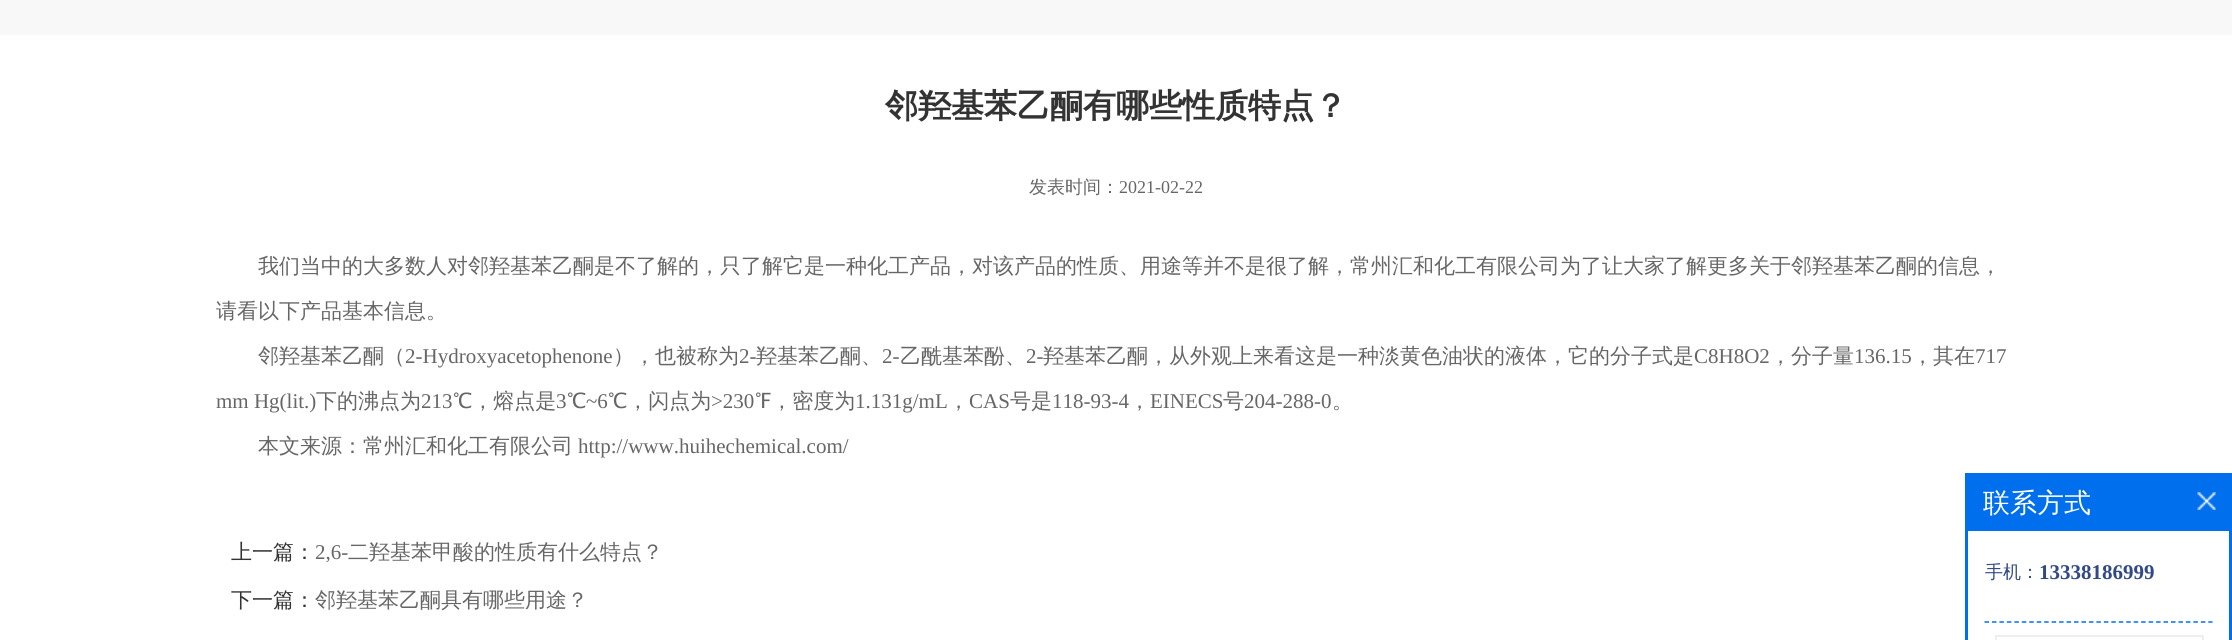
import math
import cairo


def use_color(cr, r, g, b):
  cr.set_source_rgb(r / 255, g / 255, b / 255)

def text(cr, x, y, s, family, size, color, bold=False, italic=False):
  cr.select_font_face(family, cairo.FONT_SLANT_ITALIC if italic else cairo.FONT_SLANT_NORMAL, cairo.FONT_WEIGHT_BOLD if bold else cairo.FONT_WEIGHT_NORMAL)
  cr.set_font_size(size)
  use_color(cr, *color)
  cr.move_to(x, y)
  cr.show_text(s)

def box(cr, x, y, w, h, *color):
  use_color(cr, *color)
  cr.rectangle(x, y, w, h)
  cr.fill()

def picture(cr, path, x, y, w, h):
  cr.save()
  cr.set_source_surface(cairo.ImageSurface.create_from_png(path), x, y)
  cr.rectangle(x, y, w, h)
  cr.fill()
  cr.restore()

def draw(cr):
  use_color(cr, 255, 255, 255)
  cr.paint()
  box(cr, 0, 0, 2232, 35, 248, 248, 248)
  box(cr, 1965, 473, 267, 167, 0, 111, 237)
  picture(cr, "img_01.png", 2197, 492, 19, 18)
  box(cr, 1968, 531, 261, 109, 255, 255, 255)
  cr.new_path()
  cr.move_to(1984.5, 622)
  cr.line_to(2212.5, 622)
  use_color(cr, 0, 111, 237)
  cr.set_line_width(1.5)
  cr.set_dash([4.5, 2.96])
  cr.stroke()
  cr.rectangle(1996, 636, 207, 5)
  use_color(cr, 238, 238, 238)
  cr.set_line_width(2)
  cr.set_dash([])
  cr.stroke()
  text(cr, 885, 117, "邻羟基苯乙酮有哪些性质特点？", "WenQuanYi Zen Hei", 33, (51, 51, 51), bold=True)
  text(cr, 1029, 193, "发表时间：", "WenQuanYi Zen Hei Medium", 18, (102, 102, 102))
  text(cr, 1119, 193, "2021-02-22", "Liberation Serif", 18, (102, 102, 102))
  text(cr, 258, 273, "我们当中的大多数人对邻羟基苯乙酮是不了解的，只了解它是一种化工产品，对该产品的性质、用途等并不是很了解，常州汇和化工有限公司为了让大家了解更多关于邻羟基苯乙酮的信息，", "WenQuanYi Zen Hei Medium", 21, (102, 102, 102))
  text(cr, 216, 318, "请看以下产品基本信息。", "WenQuanYi Zen Hei Medium", 21, (102, 102, 102))
  text(cr, 258, 363, "邻羟基苯乙酮（", "WenQuanYi Zen Hei Medium", 21, (102, 102, 102))
  text(cr, 405, 363, "2-Hydroxyacetophenone", "Liberation Serif", 21, (102, 102, 102))
  text(cr, 613, 363, "），也被称为", "WenQuanYi Zen Hei Medium", 21, (102, 102, 102))
  text(cr, 739, 363, "2-", "Liberation Serif", 21, (102, 102, 102))
  text(cr, 756, 363, "羟基苯乙酮、", "WenQuanYi Zen Hei Medium", 21, (102, 102, 102))
  text(cr, 882, 363, "2-", "Liberation Serif", 21, (102, 102, 102))
  text(cr, 900, 363, "乙酰基苯酚、", "WenQuanYi Zen Hei Medium", 21, (102, 102, 102))
  text(cr, 1026, 363, "2-", "Liberation Serif", 21, (102, 102, 102))
  text(cr, 1043, 363, "羟基苯乙酮，从外观上来看这是一种淡黄色油状的液体，它的分子式是", "WenQuanYi Zen Hei Medium", 21, (102, 102, 102))
  text(cr, 1694, 363, "C8H8O2", "Liberation Serif", 21, (102, 102, 102))
  text(cr, 1770, 363, "，分子量", "WenQuanYi Zen Hei Medium", 21, (102, 102, 102))
  text(cr, 1854, 363, "136.15", "Liberation Serif", 21, (102, 102, 102))
  text(cr, 1912, 363, "，其在", "WenQuanYi Zen Hei Medium", 21, (102, 102, 102))
  text(cr, 1975, 363, "717", "Liberation Serif", 21, (102, 102, 102))
  text(cr, 216, 408, "mm Hg(lit.)", "Liberation Serif", 21, (102, 102, 102))
  text(cr, 316, 408, "下的沸点为", "WenQuanYi Zen Hei Medium", 21, (102, 102, 102))
  text(cr, 421, 408, "213", "Liberation Serif", 21, (102, 102, 102))
  text(cr, 453, 408, "℃，熔点是", "WenQuanYi Zen Hei Medium", 21, (102, 102, 102))
  text(cr, 556, 408, "3", "Liberation Serif", 21, (102, 102, 102))
  text(cr, 567, 408, "℃", "WenQuanYi Zen Hei Medium", 21, (102, 102, 102))
  text(cr, 586, 408, "~6", "Liberation Serif", 21, (102, 102, 102))
  text(cr, 608, 408, "℃，闪点为", "WenQuanYi Zen Hei Medium", 21, (102, 102, 102))
  text(cr, 711, 408, ">230", "Liberation Serif", 21, (102, 102, 102))
  text(cr, 755, 408, "℉，密度为", "WenQuanYi Zen Hei Medium", 21, (102, 102, 102))
  text(cr, 855, 408, "1.131g/mL", "Liberation Serif", 21, (102, 102, 102))
  text(cr, 948, 408, "，", "WenQuanYi Zen Hei Medium", 21, (102, 102, 102))
  text(cr, 969, 408, "CAS", "Liberation Serif", 21, (102, 102, 102))
  text(cr, 1010, 408, "号是", "WenQuanYi Zen Hei Medium", 21, (102, 102, 102))
  text(cr, 1052, 408, "118-93-4", "Liberation Serif", 21, (102, 102, 102))
  text(cr, 1129, 408, "，", "WenQuanYi Zen Hei Medium", 21, (102, 102, 102))
  text(cr, 1150, 408, "EINECS", "Liberation Serif", 21, (102, 102, 102))
  text(cr, 1223, 408, "号", "WenQuanYi Zen Hei Medium", 21, (102, 102, 102))
  text(cr, 1244, 408, "204-288-0", "Liberation Serif", 21, (102, 102, 102))
  text(cr, 1332, 408, "。", "WenQuanYi Zen Hei Medium", 21, (102, 102, 102))
  text(cr, 258, 453, "本文来源：常州汇和化工有限公司", "WenQuanYi Zen Hei Medium", 21, (102, 102, 102))
  text(cr, 578, 453, "http://www.huihechemical.com/", "Liberation Serif", 21, (102, 102, 102))
  text(cr, 231, 559, "上一篇：", "WenQuanYi Zen Hei Medium", 21, (51, 51, 51))
  text(cr, 315, 559, "2,6-", "Liberation Serif", 21, (102, 102, 102))
  text(cr, 348, 559, "二羟基苯甲酸的性质有什么特点？", "WenQuanYi Zen Hei Medium", 21, (102, 102, 102))
  text(cr, 231, 607, "下一篇：", "WenQuanYi Zen Hei Medium", 21, (51, 51, 51))
  text(cr, 315, 607, "邻羟基苯乙酮具有哪些用途？", "WenQuanYi Zen Hei Medium", 21, (102, 102, 102))
  text(cr, 1983, 512, "联系方式", "WenQuanYi Zen Hei Medium", 27, (255, 255, 255))
  text(cr, 1985, 578, "手机：", "WenQuanYi Zen Hei Medium", 18, (49, 73, 133))
  text(cr, 2039, 579, "13338186999", "Liberation Serif", 21, (49, 73, 133), bold=True)


surface = cairo.ImageSurface(cairo.FORMAT_RGB24, 2232, 640)
cr = cairo.Context(surface)
options = cairo.FontOptions()
options.set_hint_metrics(cairo.HINT_METRICS_OFF)
options.set_hint_style(cairo.HINT_STYLE_NONE)
cr.set_font_options(options)
cr.set_miter_limit(4)
draw(cr)
surface.write_to_png("out.png")
